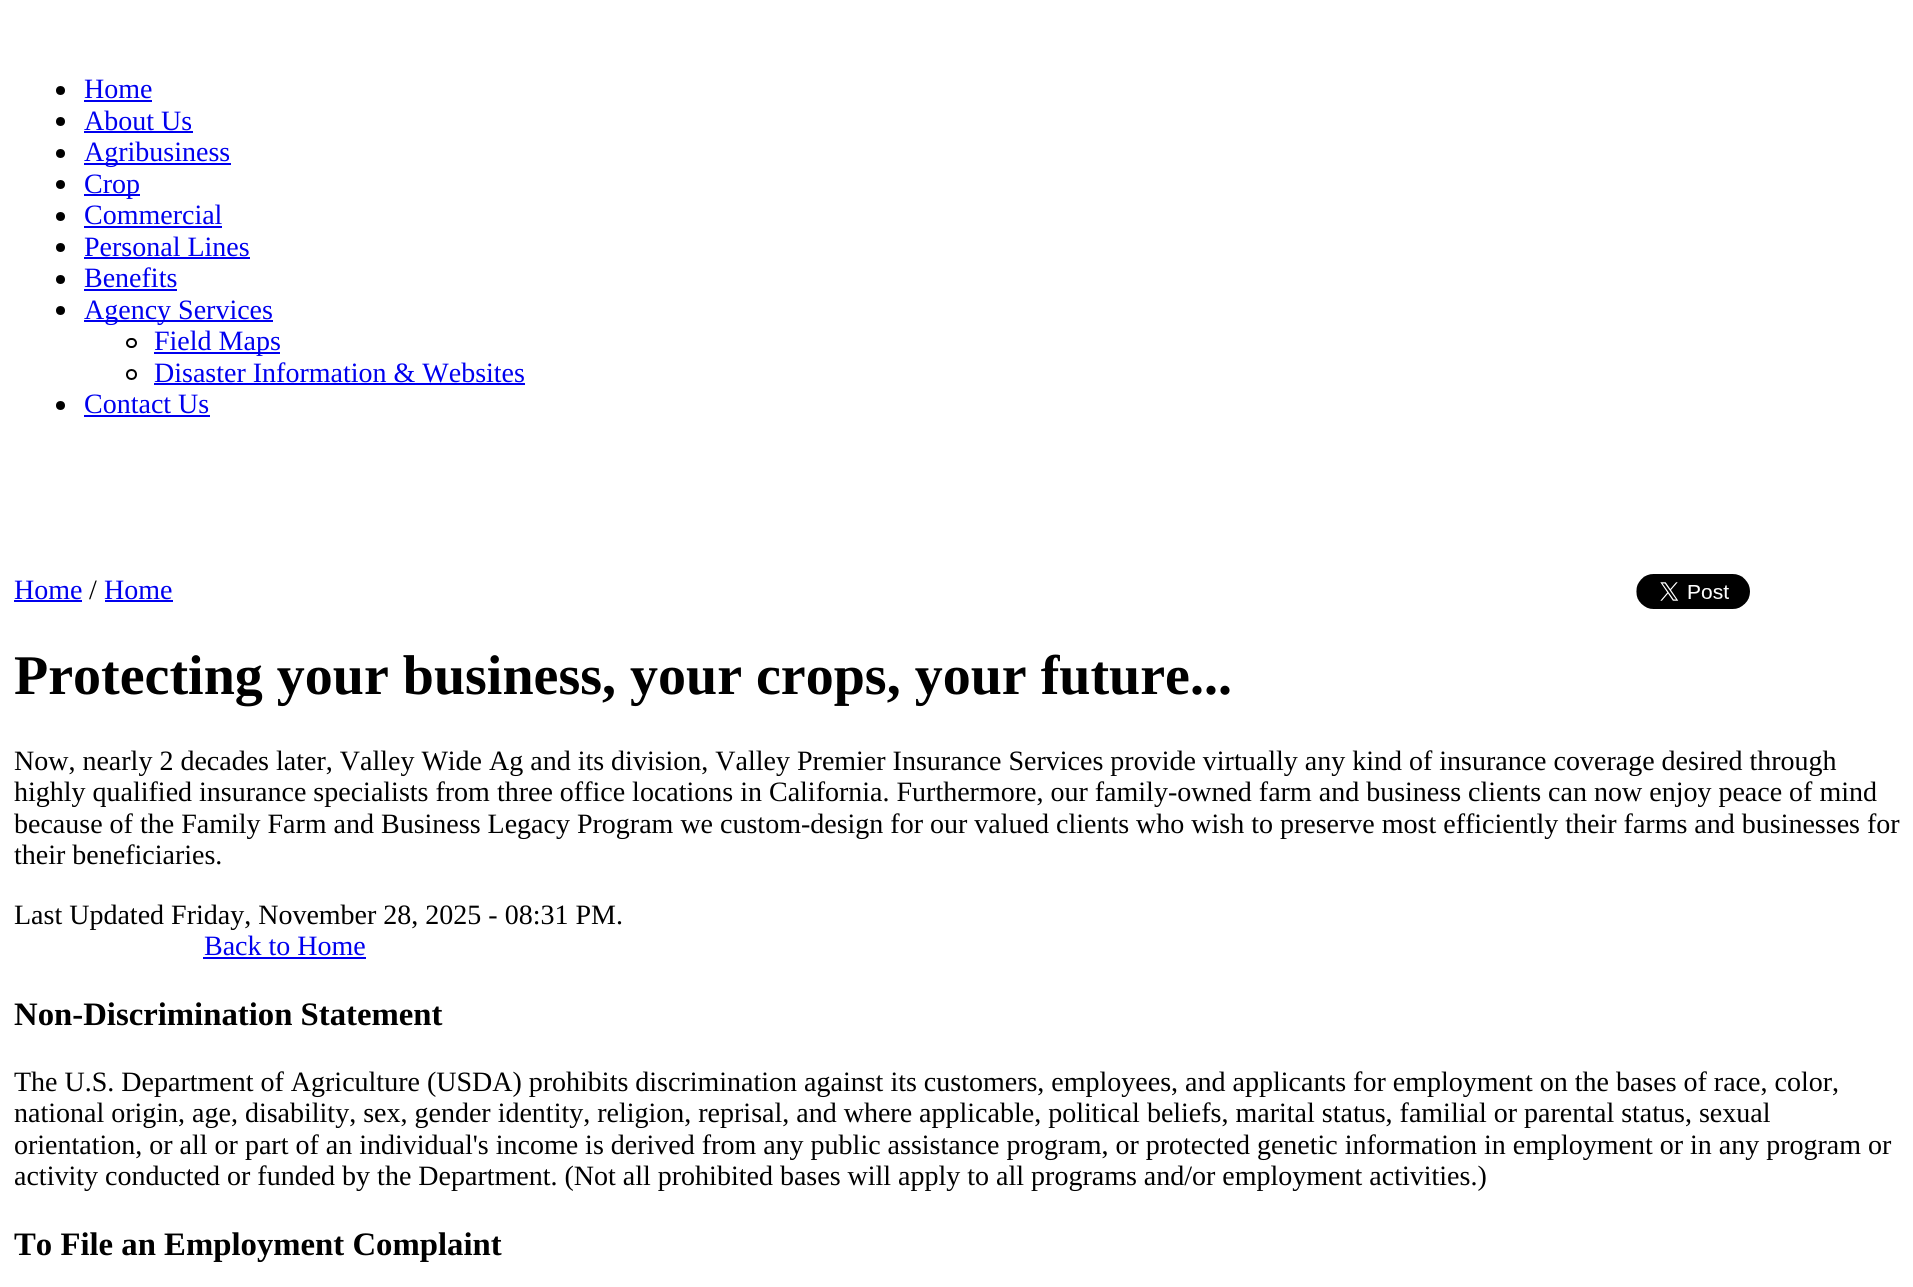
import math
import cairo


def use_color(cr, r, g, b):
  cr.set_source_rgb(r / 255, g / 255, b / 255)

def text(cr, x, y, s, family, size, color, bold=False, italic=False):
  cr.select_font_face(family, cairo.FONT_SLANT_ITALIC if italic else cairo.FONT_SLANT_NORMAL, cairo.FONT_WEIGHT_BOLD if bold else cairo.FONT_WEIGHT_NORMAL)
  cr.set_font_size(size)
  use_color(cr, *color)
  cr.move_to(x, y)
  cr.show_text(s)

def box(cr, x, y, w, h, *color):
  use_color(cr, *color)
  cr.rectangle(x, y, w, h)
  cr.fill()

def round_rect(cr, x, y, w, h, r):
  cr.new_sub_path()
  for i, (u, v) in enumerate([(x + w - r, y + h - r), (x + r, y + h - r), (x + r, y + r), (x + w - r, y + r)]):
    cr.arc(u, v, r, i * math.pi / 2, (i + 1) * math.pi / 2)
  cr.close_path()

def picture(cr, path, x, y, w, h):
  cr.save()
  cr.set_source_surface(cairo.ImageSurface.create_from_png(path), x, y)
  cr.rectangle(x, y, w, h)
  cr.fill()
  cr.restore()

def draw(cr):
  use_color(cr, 255, 255, 255)
  cr.paint()
  use_color(cr, 0, 0, 0)
  cr.arc(60.5, 90.5, 4.5, 0, 2 * math.pi)
  cr.fill()
  box(cr, 84, 100, 68, 2, 0, 0, 238)
  use_color(cr, 0, 0, 0)
  cr.arc(60.5, 121.5, 4.5, 0, 2 * math.pi)
  cr.fill()
  box(cr, 84, 131, 109, 2, 0, 0, 238)
  use_color(cr, 0, 0, 0)
  cr.arc(60.5, 153.5, 4.5, 0, 2 * math.pi)
  cr.fill()
  box(cr, 84, 163, 147, 2, 0, 0, 238)
  use_color(cr, 0, 0, 0)
  cr.arc(60.5, 184.5, 4.5, 0, 2 * math.pi)
  cr.fill()
  box(cr, 84, 194, 56, 2, 0, 0, 238)
  use_color(cr, 0, 0, 0)
  cr.arc(60.5, 216.5, 4.5, 0, 2 * math.pi)
  cr.fill()
  box(cr, 84, 226, 138, 2, 0, 0, 238)
  use_color(cr, 0, 0, 0)
  cr.arc(60.5, 247.5, 4.5, 0, 2 * math.pi)
  cr.fill()
  box(cr, 84, 257, 166, 2, 0, 0, 238)
  use_color(cr, 0, 0, 0)
  cr.arc(60.5, 279.5, 4.5, 0, 2 * math.pi)
  cr.fill()
  box(cr, 84, 289, 93, 2, 0, 0, 238)
  use_color(cr, 0, 0, 0)
  cr.arc(60.5, 310.5, 4.5, 0, 2 * math.pi)
  cr.fill()
  box(cr, 84, 320, 189, 2, 0, 0, 238)
  round_rect(cr, 127, 339, 9, 8, 4)
  use_color(cr, 0, 0, 0)
  cr.stroke()
  box(cr, 154, 352, 126, 2, 0, 0, 238)
  cr.arc(131.5, 374.5, 4.5, 0, 2 * math.pi)
  use_color(cr, 0, 0, 0)
  cr.stroke()
  box(cr, 154, 383, 371, 2, 0, 0, 238)
  use_color(cr, 0, 0, 0)
  cr.arc(60.5, 405.5, 4.5, 0, 2 * math.pi)
  cr.fill()
  box(cr, 84, 415, 126, 2, 0, 0, 238)
  box(cr, 14, 600, 68, 2, 0, 0, 238)
  box(cr, 105, 600, 68, 2, 0, 0, 238)
  picture(cr, "img_01.png", 1636, 574, 114, 35)
  box(cr, 203, 957, 163, 2, 0, 0, 238)
  text(cr, 84, 98, "Home", "Liberation Serif", 28, (0, 0, 238))
  text(cr, 84, 130, "About Us", "Liberation Serif", 28, (0, 0, 238))
  text(cr, 84, 161, "Agribusiness", "Liberation Serif", 28, (0, 0, 238))
  text(cr, 84, 193, "Crop", "Liberation Serif", 28, (0, 0, 238))
  text(cr, 84, 224, "Commercial", "Liberation Serif", 28, (0, 0, 238))
  text(cr, 84, 256, "Personal Lines", "Liberation Serif", 28, (0, 0, 238))
  text(cr, 84, 287, "Benefits", "Liberation Serif", 28, (0, 0, 238))
  text(cr, 84, 319, "Agency Services", "Liberation Serif", 28, (0, 0, 238))
  text(cr, 154, 350, "Field Maps", "Liberation Serif", 28, (0, 0, 238))
  text(cr, 154, 382, "Disaster Information & Websites", "Liberation Serif", 28, (0, 0, 238))
  text(cr, 84, 413, "Contact Us", "Liberation Serif", 28, (0, 0, 238))
  text(cr, 14, 599, "Home", "Liberation Serif", 28, (0, 0, 238))
  text(cr, 89, 599, "/", "Liberation Serif", 28, (0, 0, 0))
  text(cr, 104, 599, "Home", "Liberation Serif", 28, (0, 0, 238))
  text(cr, 14, 694, "Protecting your business, your crops, your future...", "Liberation Serif", 56, (0, 0, 0), bold=True)
  text(cr, 14, 770, "Now, nearly 2 decades later, Valley Wide Ag and its division, Valley Premier Insurance Services provide virtually any kind of insurance coverage desired through", "Liberation Serif", 28, (0, 0, 0))
  text(cr, 14, 801, "highly qualified insurance specialists from three office locations in California. Furthermore, our family-owned farm and business clients can now enjoy peace of mind", "Liberation Serif", 28, (0, 0, 0))
  text(cr, 14, 833, "because of the Family Farm and Business Legacy Program we custom-design for our valued clients who wish to preserve most efficiently their farms and businesses for", "Liberation Serif", 28, (0, 0, 0))
  text(cr, 14, 864, "their beneficiaries.", "Liberation Serif", 28, (0, 0, 0))
  text(cr, 14, 924, "Last Updated Friday, November 28, 2025 - 08:31 PM.", "Liberation Serif", 28, (0, 0, 0))
  text(cr, 204, 955, "Back to Home", "Liberation Serif", 28, (0, 0, 238))
  text(cr, 14, 1025, "Non-Discrimination Statement", "Liberation Serif", 32.75, (0, 0, 0), bold=True)
  text(cr, 14, 1091, "The U.S. Department of Agriculture (USDA) prohibits discrimination against its customers, employees, and applicants for employment on the bases of race, color,", "Liberation Serif", 28, (0, 0, 0))
  text(cr, 14, 1122, "national origin, age, disability, sex, gender identity, religion, reprisal, and where applicable, political beliefs, marital status, familial or parental status, sexual", "Liberation Serif", 28, (0, 0, 0))
  text(cr, 14, 1154, "orientation, or all or part of an individual's income is derived from any public assistance program, or protected genetic information in employment or in any program or", "Liberation Serif", 28, (0, 0, 0))
  text(cr, 14, 1185, "activity conducted or funded by the Department. (Not all prohibited bases will apply to all programs and/or employment activities.)", "Liberation Serif", 28, (0, 0, 0))
  text(cr, 14, 1255, "To File an Employment Complaint", "Liberation Serif", 32.75, (0, 0, 0), bold=True)


surface = cairo.ImageSurface(cairo.FORMAT_RGB24, 1913, 1287)
cr = cairo.Context(surface)
options = cairo.FontOptions()
options.set_hint_metrics(cairo.HINT_METRICS_OFF)
options.set_hint_style(cairo.HINT_STYLE_NONE)
cr.set_font_options(options)
cr.set_miter_limit(4)
draw(cr)
surface.write_to_png("out.png")
